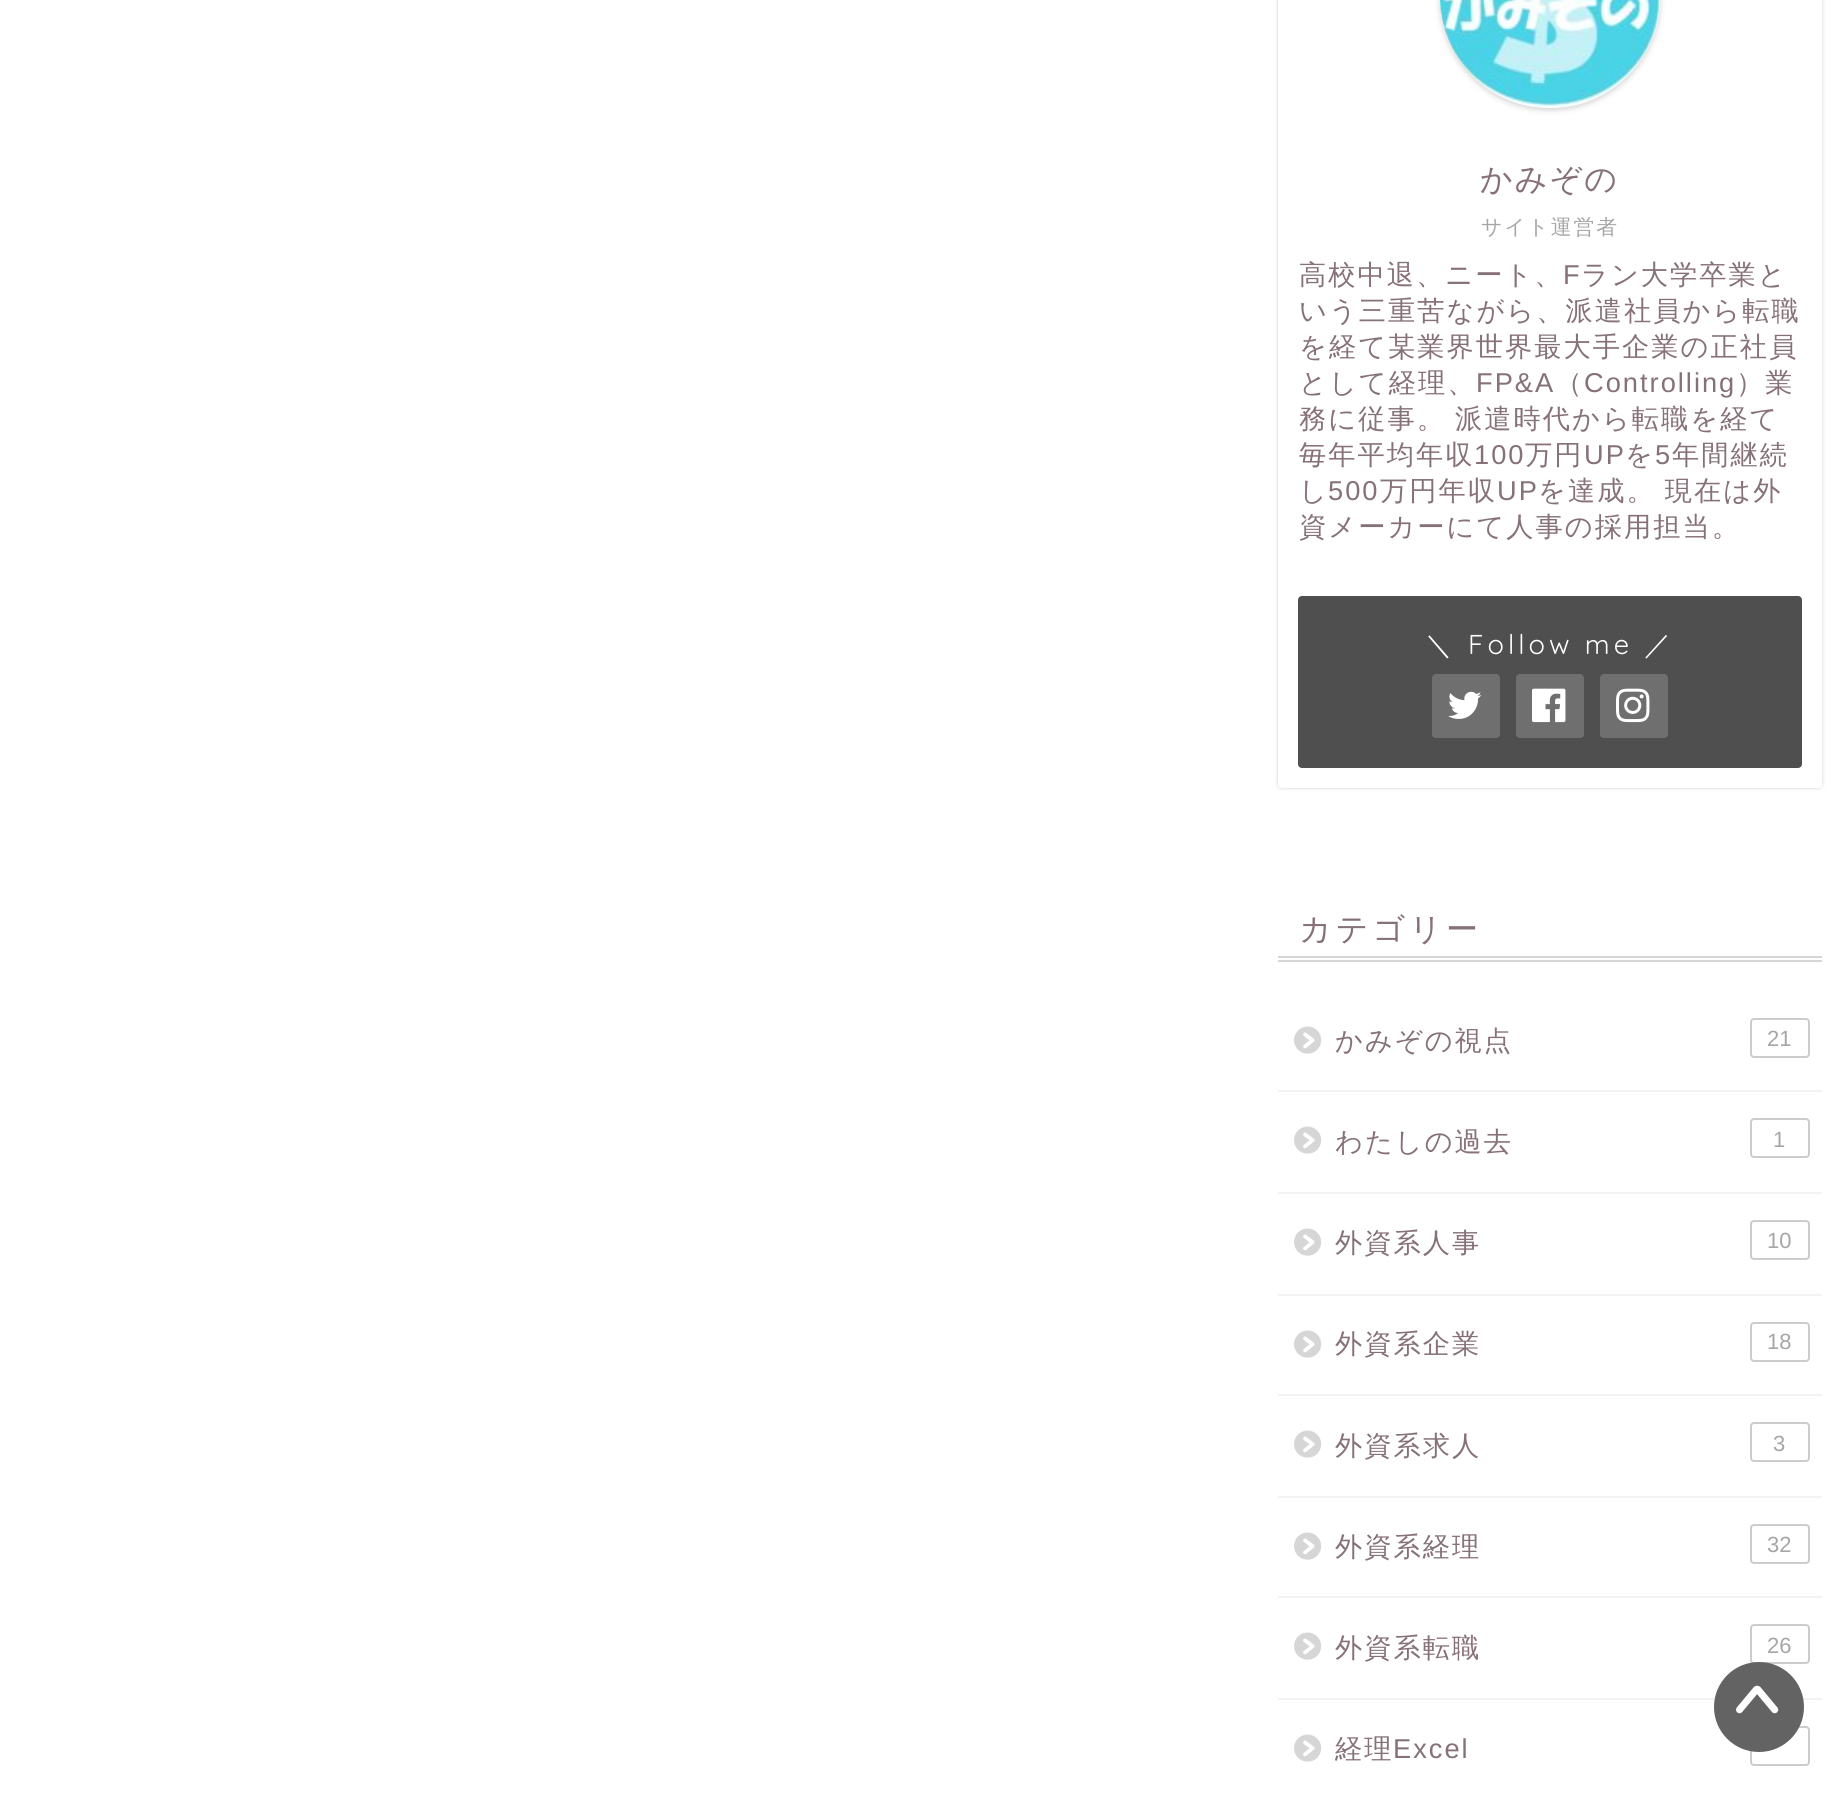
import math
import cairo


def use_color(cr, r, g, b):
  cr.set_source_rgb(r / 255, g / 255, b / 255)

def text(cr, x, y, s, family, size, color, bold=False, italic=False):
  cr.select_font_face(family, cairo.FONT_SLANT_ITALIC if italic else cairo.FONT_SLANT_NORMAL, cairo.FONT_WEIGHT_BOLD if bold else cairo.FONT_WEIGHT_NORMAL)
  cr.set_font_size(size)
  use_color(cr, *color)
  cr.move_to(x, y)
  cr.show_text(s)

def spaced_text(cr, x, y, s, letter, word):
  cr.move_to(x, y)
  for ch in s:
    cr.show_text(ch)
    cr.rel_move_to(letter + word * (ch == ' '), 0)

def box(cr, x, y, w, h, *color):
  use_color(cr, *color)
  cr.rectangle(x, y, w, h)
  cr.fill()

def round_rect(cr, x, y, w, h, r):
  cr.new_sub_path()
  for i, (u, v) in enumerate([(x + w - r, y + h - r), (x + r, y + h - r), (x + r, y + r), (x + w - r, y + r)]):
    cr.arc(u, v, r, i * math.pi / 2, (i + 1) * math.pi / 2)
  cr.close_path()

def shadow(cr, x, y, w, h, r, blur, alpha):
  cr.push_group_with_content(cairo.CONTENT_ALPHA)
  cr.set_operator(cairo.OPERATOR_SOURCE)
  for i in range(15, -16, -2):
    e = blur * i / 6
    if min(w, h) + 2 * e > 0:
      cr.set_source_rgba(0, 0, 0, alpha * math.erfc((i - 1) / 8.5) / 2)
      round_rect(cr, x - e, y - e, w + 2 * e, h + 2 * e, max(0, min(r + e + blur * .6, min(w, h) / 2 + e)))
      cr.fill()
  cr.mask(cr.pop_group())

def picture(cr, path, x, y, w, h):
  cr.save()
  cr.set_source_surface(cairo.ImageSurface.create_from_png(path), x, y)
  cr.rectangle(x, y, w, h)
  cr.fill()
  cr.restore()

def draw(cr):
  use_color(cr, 255, 255, 255)
  cr.paint()
  use_color(cr, 0, 0, 0)
  shadow(cr, 1278, -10, 544, 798, 4, 2, 0.18)
  use_color(cr, 255, 255, 255)
  round_rect(cr, 1278, -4, 544, 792, 4)
  cr.fill()
  use_color(cr, 0, 0, 0)
  shadow(cr, 1440, -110, 220, 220, 110, 3, 0.18)
  use_color(cr, 255, 255, 255)
  round_rect(cr, 1440, -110, 220, 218, 110)
  cr.fill()
  picture(cr, "img_01.png", 1440, 0, 220, 107)
  use_color(cr, 79, 79, 79)
  round_rect(cr, 1298, 596, 504, 172, 4)
  cr.fill()
  use_color(cr, 111, 111, 111)
  round_rect(cr, 1432, 674, 68, 64, 4)
  cr.fill()
  picture(cr, "img_02.png", 1448, 691, 34, 28)
  round_rect(cr, 1516, 674, 68, 64, 4)
  cr.fill()
  picture(cr, "img_03.png", 1532, 688, 34, 35)
  round_rect(cr, 1600, 674, 68, 64, 4)
  cr.fill()
  picture(cr, "img_04.png", 1616, 688, 34, 35)
  box(cr, 1278, 956, 544, 2, 214, 214, 214)
  box(cr, 1278, 960, 544, 2, 214, 214, 214)
  box(cr, 1278, 1090, 544, 2, 242, 242, 242)
  picture(cr, "img_05.png", 1294, 1026, 28, 28)
  round_rect(cr, 1751, 1019, 58, 38, 3)
  use_color(cr, 204, 204, 204)
  cr.stroke()
  box(cr, 1278, 1192, 544, 2, 242, 242, 242)
  picture(cr, "img_05.png", 1294, 1126, 28, 28)
  round_rect(cr, 1751, 1119, 58, 38, 3)
  use_color(cr, 204, 204, 204)
  cr.stroke()
  box(cr, 1278, 1294, 544, 2, 242, 242, 242)
  picture(cr, "img_05.png", 1294, 1228, 28, 28)
  round_rect(cr, 1751, 1221, 58, 38, 3)
  use_color(cr, 204, 204, 204)
  cr.stroke()
  box(cr, 1278, 1394, 544, 2, 242, 242, 242)
  picture(cr, "img_05.png", 1294, 1330, 28, 28)
  round_rect(cr, 1751, 1323, 58, 38, 3)
  use_color(cr, 204, 204, 204)
  cr.stroke()
  box(cr, 1278, 1496, 544, 2, 242, 242, 242)
  picture(cr, "img_05.png", 1294, 1430, 28, 28)
  round_rect(cr, 1751, 1423, 58, 38, 3)
  use_color(cr, 204, 204, 204)
  cr.stroke()
  box(cr, 1278, 1596, 544, 2, 242, 242, 242)
  picture(cr, "img_05.png", 1294, 1532, 28, 28)
  round_rect(cr, 1751, 1525, 58, 38, 3)
  use_color(cr, 204, 204, 204)
  cr.stroke()
  box(cr, 1278, 1698, 544, 2, 242, 242, 242)
  picture(cr, "img_05.png", 1294, 1632, 28, 28)
  round_rect(cr, 1751, 1625, 58, 38, 3)
  use_color(cr, 204, 204, 204)
  cr.stroke()
  picture(cr, "img_05.png", 1294, 1734, 28, 28)
  round_rect(cr, 1751, 1727, 58, 38, 3)
  cr.stroke()
  use_color(cr, 99, 99, 99)
  cr.arc(1759, 1707, 45, 0, 2 * math.pi)
  cr.fill()
  picture(cr, "img_06.png", 1736, 1685, 43, 29)
  cr.select_font_face("WenQuanYi Zen Hei Medium")
  cr.set_font_size(32)
  use_color(cr, 135, 113, 121)
  spaced_text(cr, 1480, 190, "かみぞの", 2, 0)
  cr.set_font_size(20.75)
  use_color(cr, 166, 166, 166)
  spaced_text(cr, 1481, 234, "サイト運営者", 2, 0)
  cr.set_font_size(27.25)
  use_color(cr, 135, 113, 121)
  spaced_text(cr, 1299, 284, "高校中退、ニート、", 2, 0)
  cr.select_font_face("Liberation Sans")
  spaced_text(cr, 1563, 284, "F", 2, 0)
  cr.select_font_face("WenQuanYi Zen Hei Medium")
  spaced_text(cr, 1581, 284, "ラン大学卒業と", 2, 0)
  spaced_text(cr, 1299, 320, "いう三重苦ながら、派遣社員から転職", 2, 0)
  spaced_text(cr, 1299, 356, "を経て某業界世界最大手企業の正社員", 2, 0)
  spaced_text(cr, 1299, 392, "として経理、", 2, 0)
  cr.select_font_face("Liberation Sans")
  spaced_text(cr, 1476, 392, "FP&A", 2, 0)
  cr.select_font_face("WenQuanYi Zen Hei Medium")
  spaced_text(cr, 1555, 392, "（", 2, 0)
  cr.select_font_face("Liberation Sans")
  spaced_text(cr, 1584, 392, "Controlling", 2, 0)
  cr.select_font_face("WenQuanYi Zen Hei Medium")
  spaced_text(cr, 1736, 392, "）業", 2, 0)
  spaced_text(cr, 1299, 428, "務に従事。 派遣時代から転職を経て", 2, -1)
  spaced_text(cr, 1299, 464, "毎年平均年収", 2, 0)
  cr.select_font_face("Liberation Sans")
  spaced_text(cr, 1474, 464, "100", 2, 0)
  cr.select_font_face("WenQuanYi Zen Hei Medium")
  spaced_text(cr, 1525, 464, "万円", 2, 0)
  cr.select_font_face("Liberation Sans")
  spaced_text(cr, 1584, 464, "UP", 2, 0)
  cr.select_font_face("WenQuanYi Zen Hei Medium")
  spaced_text(cr, 1625, 464, "を", 2, 0)
  cr.select_font_face("Liberation Sans")
  spaced_text(cr, 1655, 464, "5", 2, 0)
  cr.select_font_face("WenQuanYi Zen Hei Medium")
  spaced_text(cr, 1672, 464, "年間継続", 2, 0)
  spaced_text(cr, 1299, 500, "し", 2, 0)
  cr.select_font_face("Liberation Sans")
  spaced_text(cr, 1328, 500, "500", 2, 0)
  cr.select_font_face("WenQuanYi Zen Hei Medium")
  spaced_text(cr, 1380, 500, "万円年収", 2, 0)
  cr.select_font_face("Liberation Sans")
  spaced_text(cr, 1497, 500, "UP", 2, 0)
  cr.select_font_face("WenQuanYi Zen Hei Medium")
  spaced_text(cr, 1538, 500, "を達成。 現在は外", 2, -1)
  spaced_text(cr, 1299, 536, "資メーカーにて人事の採用担当。", 2, 0)
  use_color(cr, 255, 255, 255)
  spaced_text(cr, 1425, 654, "＼", 4, 0)
  cr.select_font_face("Quicksand Light")
  spaced_text(cr, 1468, 654, "Follow me", 4, 0)
  cr.select_font_face("WenQuanYi Zen Hei Medium")
  spaced_text(cr, 1644, 654, "／", 4, 0)
  cr.set_font_size(32)
  use_color(cr, 135, 113, 121)
  spaced_text(cr, 1299, 940, "カテゴリー", 4, 0)
  cr.set_font_size(27.25)
  spaced_text(cr, 1335, 1050, "かみぞの視点", 2, 0)
  text(cr, 1767, 1046, "21", "Liberation Sans", 22, (166, 166, 166))
  cr.select_font_face("WenQuanYi Zen Hei Medium")
  cr.set_font_size(27.25)
  use_color(cr, 135, 113, 121)
  spaced_text(cr, 1335, 1151, "わたしの過去", 2, 0)
  text(cr, 1773, 1147, "1", "Liberation Sans", 22, (166, 166, 166))
  cr.select_font_face("WenQuanYi Zen Hei Medium")
  cr.set_font_size(27.25)
  use_color(cr, 135, 113, 121)
  spaced_text(cr, 1335, 1252, "外資系人事", 2, 0)
  text(cr, 1767, 1248, "10", "Liberation Sans", 22, (166, 166, 166))
  cr.select_font_face("WenQuanYi Zen Hei Medium")
  cr.set_font_size(27.25)
  use_color(cr, 135, 113, 121)
  spaced_text(cr, 1335, 1353, "外資系企業", 2, 0)
  text(cr, 1767, 1349, "18", "Liberation Sans", 22, (166, 166, 166))
  cr.select_font_face("WenQuanYi Zen Hei Medium")
  cr.set_font_size(27.25)
  use_color(cr, 135, 113, 121)
  spaced_text(cr, 1335, 1455, "外資系求人", 2, 0)
  text(cr, 1773, 1451, "3", "Liberation Sans", 22, (166, 166, 166))
  cr.select_font_face("WenQuanYi Zen Hei Medium")
  cr.set_font_size(27.25)
  use_color(cr, 135, 113, 121)
  spaced_text(cr, 1335, 1556, "外資系経理", 2, 0)
  text(cr, 1767, 1552, "32", "Liberation Sans", 22, (166, 166, 166))
  cr.select_font_face("WenQuanYi Zen Hei Medium")
  cr.set_font_size(27.25)
  use_color(cr, 135, 113, 121)
  spaced_text(cr, 1335, 1657, "外資系転職", 2, 0)
  text(cr, 1767, 1653, "26", "Liberation Sans", 22, (166, 166, 166))
  cr.select_font_face("WenQuanYi Zen Hei Medium")
  cr.set_font_size(27.25)
  use_color(cr, 135, 113, 121)
  spaced_text(cr, 1335, 1758, "経理", 2, 0)
  cr.select_font_face("Liberation Sans")
  spaced_text(cr, 1393, 1758, "Excel", 2, 0)


surface = cairo.ImageSurface(cairo.FORMAT_RGB24, 1847, 1795)
cr = cairo.Context(surface)
options = cairo.FontOptions()
options.set_hint_metrics(cairo.HINT_METRICS_OFF)
options.set_hint_style(cairo.HINT_STYLE_NONE)
cr.set_font_options(options)
cr.set_miter_limit(4)
draw(cr)
surface.write_to_png("out.png")
